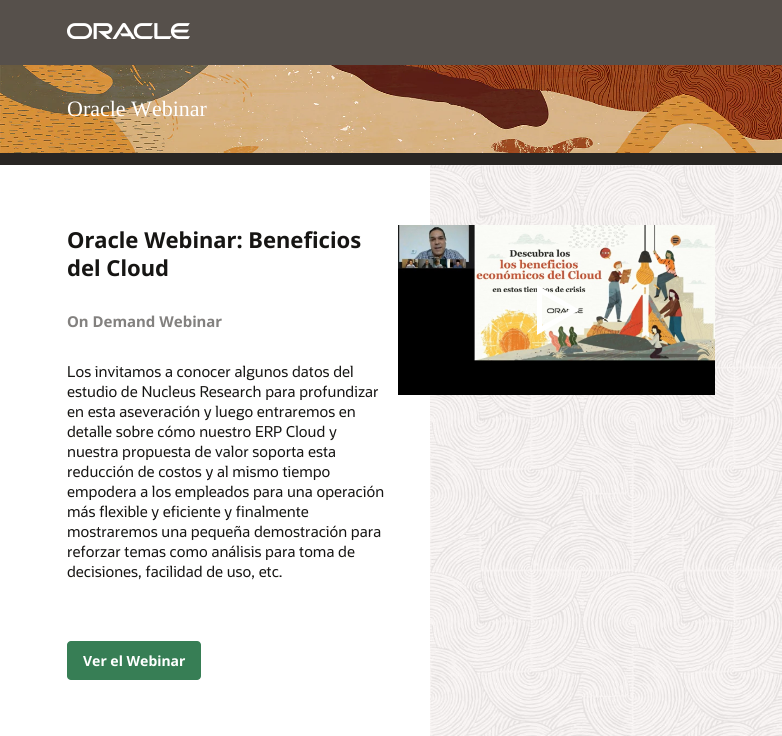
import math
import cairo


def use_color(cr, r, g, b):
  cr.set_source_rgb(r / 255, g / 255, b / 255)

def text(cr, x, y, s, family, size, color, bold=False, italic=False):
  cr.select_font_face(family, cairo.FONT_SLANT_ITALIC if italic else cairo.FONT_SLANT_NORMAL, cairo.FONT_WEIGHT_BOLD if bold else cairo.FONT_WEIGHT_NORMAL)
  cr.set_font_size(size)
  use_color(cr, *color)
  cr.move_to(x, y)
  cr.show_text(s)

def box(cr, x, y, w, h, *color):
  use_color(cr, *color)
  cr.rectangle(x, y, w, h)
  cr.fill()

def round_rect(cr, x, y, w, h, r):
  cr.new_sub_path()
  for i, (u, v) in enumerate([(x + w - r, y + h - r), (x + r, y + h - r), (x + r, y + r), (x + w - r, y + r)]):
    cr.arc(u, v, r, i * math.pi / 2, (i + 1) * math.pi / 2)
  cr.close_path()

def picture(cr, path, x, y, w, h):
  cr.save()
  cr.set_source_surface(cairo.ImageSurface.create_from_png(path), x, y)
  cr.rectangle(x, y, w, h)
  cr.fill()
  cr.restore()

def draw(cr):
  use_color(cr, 86, 80, 75)
  cr.paint()
  picture(cr, "img_01.png", 67, 23, 123, 16)
  box(cr, 0, 153, 782, 12, 41, 38, 35)
  picture(cr, "img_02.png", 0, 65, 782, 88)
  box(cr, 0, 165, 430, 571, 255, 255, 255)
  picture(cr, "img_03.png", 430, 165, 352, 571)
  use_color(cr, 55, 126, 85)
  round_rect(cr, 67, 641, 134, 39, 4)
  cr.fill()
  picture(cr, "img_04.png", 398, 225, 317, 170)
  picture(cr, "img_05.png", 537, 285, 43, 50)
  text(cr, 67, 116, "Oracle Webinar", "Liberation Serif", 22, (255, 255, 255))
  text(cr, 67, 248, "Oracle Webinar: Beneficios", "Noto Sans", 22, (22, 21, 19), bold=True)
  text(cr, 67, 276, "del Cloud", "Noto Sans", 22, (22, 21, 19), bold=True)
  text(cr, 67, 327, "On Demand Webinar", "Noto Sans", 15, (131, 129, 127), bold=True)
  text(cr, 67, 377, "Los invitamos a conocer algunos datos del", "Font", 15, (22, 21, 19))
  text(cr, 67, 397, "estudio de Nucleus Research para profundizar", "Font", 15, (22, 21, 19))
  text(cr, 67, 417, "en esta aseveración y luego entraremos en", "Font", 15, (22, 21, 19))
  text(cr, 67, 437, "detalle sobre cómo nuestro ERP Cloud y", "Font", 15, (22, 21, 19))
  text(cr, 67, 457, "nuestra propuesta de valor soporta esta", "Font", 15, (22, 21, 19))
  text(cr, 67, 477, "reducción de costos y al mismo tiempo", "Font", 15, (22, 21, 19))
  text(cr, 67, 497, "empodera a los empleados para una operación", "Font", 15, (22, 21, 19))
  text(cr, 67, 517, "más flexible y eficiente y finalmente", "Font", 15, (22, 21, 19))
  text(cr, 67, 537, "mostraremos una pequeña demostración para", "Font", 15, (22, 21, 19))
  text(cr, 67, 557, "reforzar temas como análisis para toma de", "Font", 15, (22, 21, 19))
  text(cr, 67, 577, "decisiones, facilidad de uso, etc.", "Font", 15, (22, 21, 19))
  text(cr, 83, 666, "Ver el Webinar", "Noto Sans", 14, (255, 255, 255), bold=True)


surface = cairo.ImageSurface(cairo.FORMAT_RGB24, 782, 736)
cr = cairo.Context(surface)
options = cairo.FontOptions()
options.set_hint_metrics(cairo.HINT_METRICS_OFF)
options.set_hint_style(cairo.HINT_STYLE_NONE)
cr.set_font_options(options)
cr.set_miter_limit(4)
draw(cr)
surface.write_to_png("out.png")
